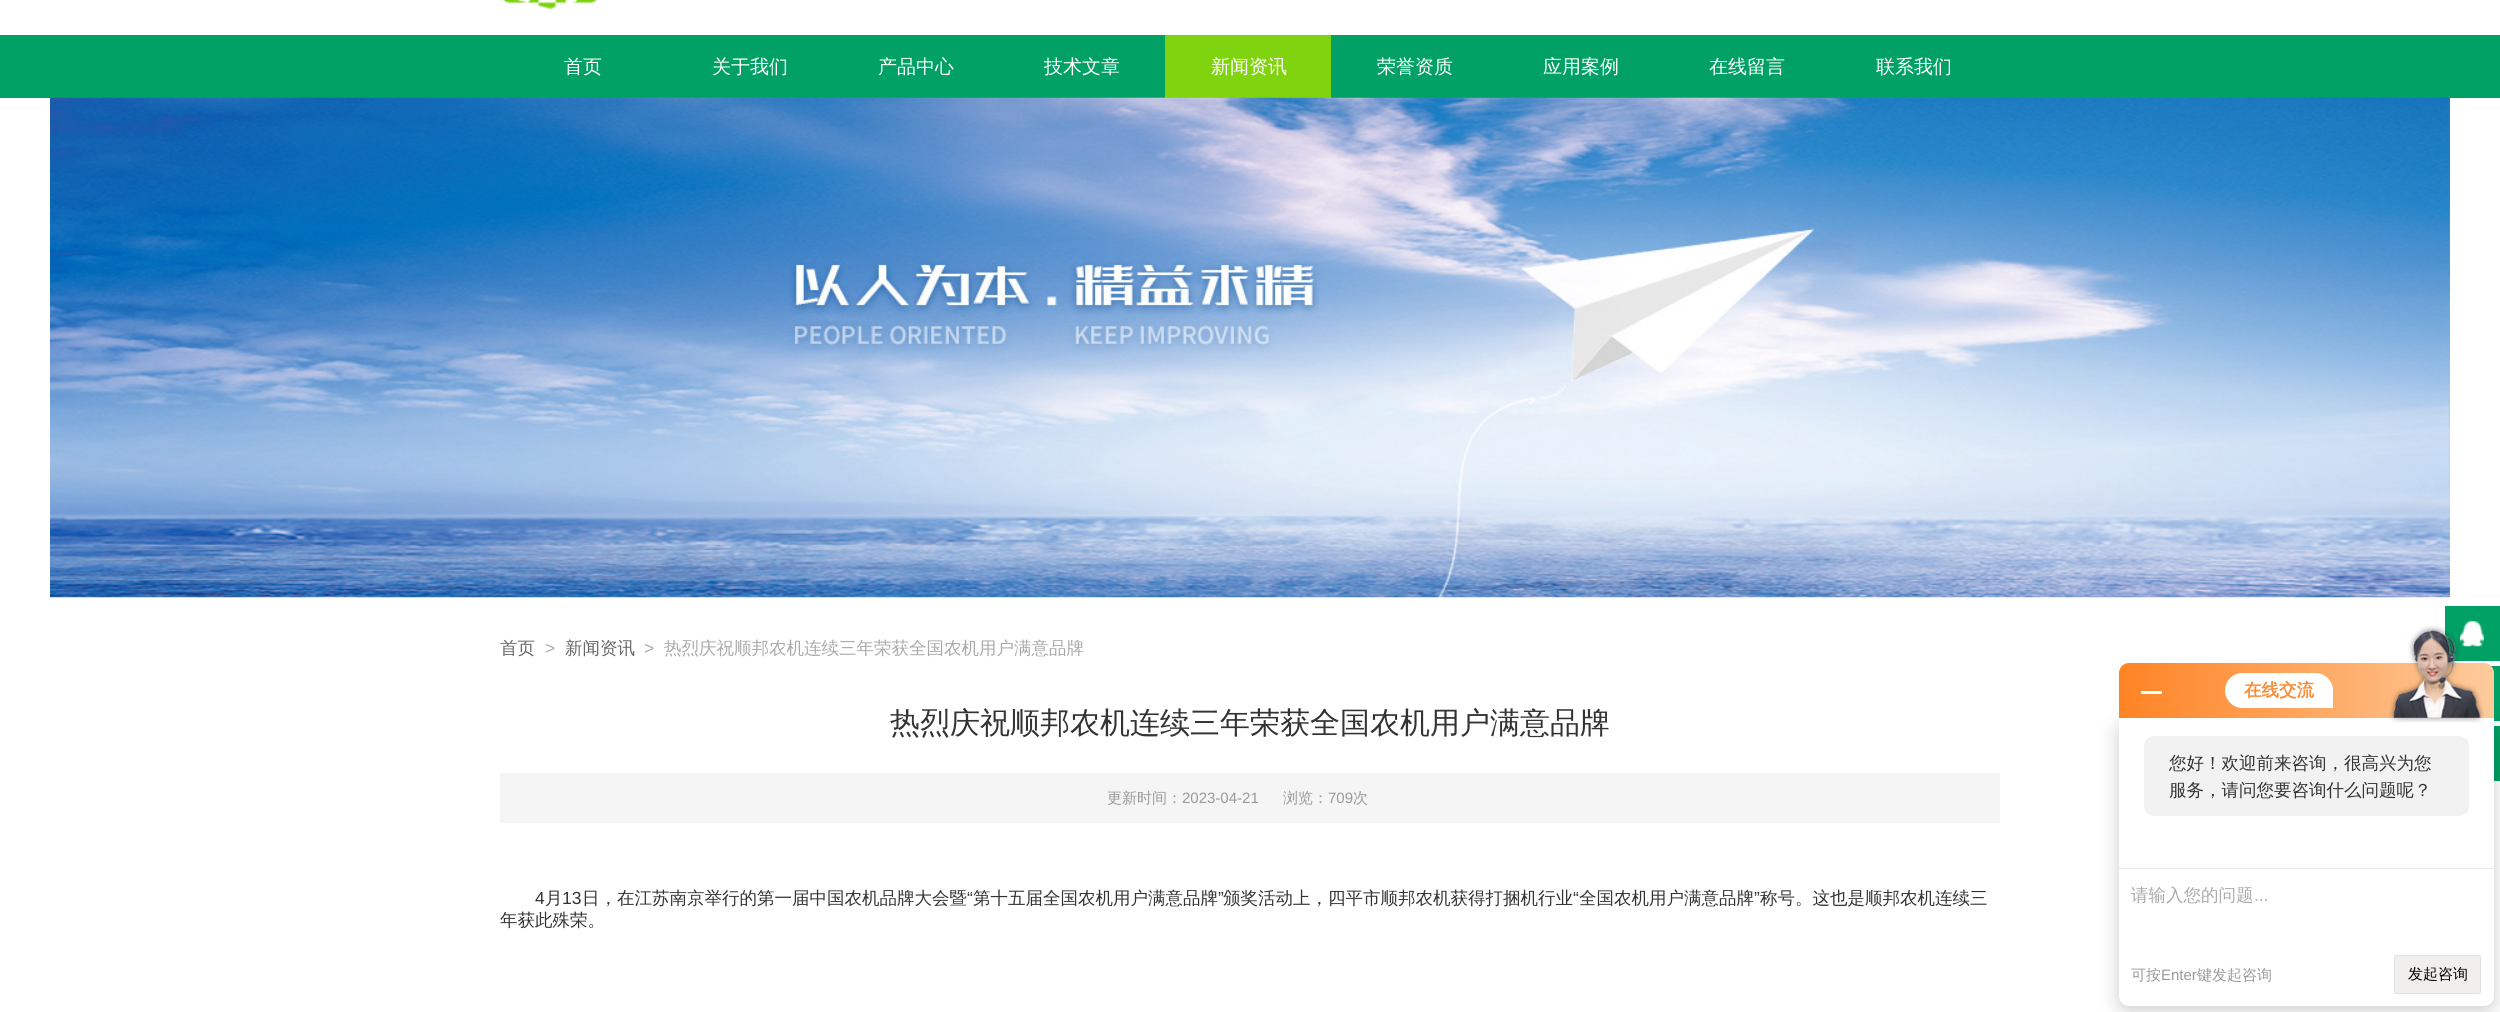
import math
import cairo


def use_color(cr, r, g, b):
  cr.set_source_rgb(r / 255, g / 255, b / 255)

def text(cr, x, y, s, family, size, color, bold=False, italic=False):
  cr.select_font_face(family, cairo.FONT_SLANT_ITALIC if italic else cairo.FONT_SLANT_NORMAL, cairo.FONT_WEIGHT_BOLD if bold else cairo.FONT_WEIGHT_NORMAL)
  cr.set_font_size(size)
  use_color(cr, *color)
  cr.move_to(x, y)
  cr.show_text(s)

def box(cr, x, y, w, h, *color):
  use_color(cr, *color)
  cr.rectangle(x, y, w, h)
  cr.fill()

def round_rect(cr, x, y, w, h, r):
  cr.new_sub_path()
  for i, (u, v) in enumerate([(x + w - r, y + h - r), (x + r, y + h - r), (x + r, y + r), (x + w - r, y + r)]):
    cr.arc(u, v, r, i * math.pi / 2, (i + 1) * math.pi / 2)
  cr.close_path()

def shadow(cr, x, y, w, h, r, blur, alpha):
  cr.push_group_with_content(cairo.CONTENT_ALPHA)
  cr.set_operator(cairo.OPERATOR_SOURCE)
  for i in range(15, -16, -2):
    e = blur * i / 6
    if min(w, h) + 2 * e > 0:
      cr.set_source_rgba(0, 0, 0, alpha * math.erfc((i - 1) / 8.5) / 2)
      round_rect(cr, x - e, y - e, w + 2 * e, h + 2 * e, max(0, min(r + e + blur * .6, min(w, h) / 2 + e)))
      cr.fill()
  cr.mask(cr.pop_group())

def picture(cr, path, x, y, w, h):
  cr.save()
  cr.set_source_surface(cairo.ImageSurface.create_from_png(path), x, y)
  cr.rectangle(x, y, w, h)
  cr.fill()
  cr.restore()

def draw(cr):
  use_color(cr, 255, 255, 255)
  cr.paint()
  picture(cr, "img_01.png", 502, 0, 95, 9)
  box(cr, 0, 35, 2500, 63, 1, 160, 101)
  box(cr, 1165, 35, 166, 63, 128, 211, 15)
  picture(cr, "img_02.png", 50, 97, 2400, 501)
  box(cr, 500, 773, 1500, 50, 245, 245, 245)
  box(cr, 2491, 666, 9, 55, 1, 160, 101)
  box(cr, 2494, 726, 6, 55, 1, 160, 101)
  use_color(cr, 0, 0, 0)
  shadow(cr, 2119, 723, 375, 288, 10, 10, 0.2)
  gradient = cairo.LinearGradient(2119, 690, 2494, 690)
  gradient.add_color_stop_rgba(0, 1, 0.514, 0.141, 1)
  gradient.add_color_stop_rgba(1, 0.996, 0.796, 0.612, 1)
  cr.set_source(gradient)
  cr.new_path()
  cr.move_to(2129, 663)
  cr.line_to(2484, 663)
  cr.curve_to(2489.5, 663, 2494, 667.5, 2494, 673)
  cr.line_to(2494, 718)
  cr.line_to(2119, 718)
  cr.line_to(2119, 673)
  cr.curve_to(2119, 667.5, 2123.5, 663, 2129, 663)
  cr.close_path()
  cr.fill()
  box(cr, 2141, 691, 21, 3, 255, 255, 255)
  cr.new_path()
  cr.move_to(2242.5, 673)
  cr.line_to(2315.5, 673)
  cr.curve_to(2325, 673, 2333, 681, 2333, 690.5)
  cr.line_to(2333, 708)
  cr.line_to(2242.5, 708)
  cr.curve_to(2233, 708, 2225, 700, 2225, 690.5)
  cr.curve_to(2225, 681, 2233, 673, 2242.5, 673)
  cr.close_path()
  cr.fill()
  cr.new_path()
  cr.move_to(2119, 718)
  cr.line_to(2494, 718)
  cr.line_to(2494, 996)
  cr.curve_to(2494, 1001.5, 2489.5, 1006, 2484, 1006)
  cr.line_to(2129, 1006)
  cr.curve_to(2123.5, 1006, 2119, 1001.5, 2119, 996)
  cr.close_path()
  cr.fill()
  box(cr, 2445, 606, 55, 55, 1, 160, 101)
  picture(cr, "img_04.png", 2460, 621, 24, 26)
  picture(cr, "img_03.png", 2389, 626, 95, 97)
  use_color(cr, 242, 242, 242)
  round_rect(cr, 2144, 736, 325, 80, 10)
  cr.fill()
  box(cr, 2119, 868, 375, 1, 234, 234, 234)
  use_color(cr, 240, 239, 237)
  round_rect(cr, 2394.5, 955.5, 86, 38, 2)
  cr.fill_preserve()
  use_color(cr, 226, 226, 226)
  cr.set_line_width(1)
  cr.stroke()
  text(cr, 564, 73, "首页", "WenQuanYi Zen Hei Medium", 19, (255, 255, 255))
  text(cr, 712, 73, "关于我们", "WenQuanYi Zen Hei Medium", 19, (255, 255, 255))
  text(cr, 878, 73, "产品中心", "WenQuanYi Zen Hei Medium", 19, (255, 255, 255))
  text(cr, 1044, 73, "技术文章", "WenQuanYi Zen Hei Medium", 19, (255, 255, 255))
  text(cr, 1211, 73, "新闻资讯", "WenQuanYi Zen Hei Medium", 19, (255, 255, 255))
  text(cr, 1377, 73, "荣誉资质", "WenQuanYi Zen Hei Medium", 19, (255, 255, 255))
  text(cr, 1543, 73, "应用案例", "WenQuanYi Zen Hei Medium", 19, (255, 255, 255))
  text(cr, 1709, 73, "在线留言", "WenQuanYi Zen Hei Medium", 19, (255, 255, 255))
  text(cr, 1876, 73, "联系我们", "WenQuanYi Zen Hei Medium", 19, (255, 255, 255))
  text(cr, 500, 654, "首页", "WenQuanYi Zen Hei Medium", 17.5, (102, 102, 102))
  text(cr, 545, 654, ">", "Liberation Sans", 17.5, (170, 170, 170))
  text(cr, 565, 654, "新闻资讯", "WenQuanYi Zen Hei Medium", 17.5, (102, 102, 102))
  text(cr, 644, 654, ">", "Liberation Sans", 17.5, (170, 170, 170))
  text(cr, 664, 654, "热烈庆祝顺邦农机连续三年荣获全国农机用户满意品牌", "WenQuanYi Zen Hei Medium", 17.5, (170, 170, 170))
  text(cr, 890, 733, "热烈庆祝顺邦农机连续三年荣获全国农机用户满意品牌", "WenQuanYi Zen Hei Medium", 30, (51, 51, 51))
  text(cr, 1107, 803, "更新时间：", "WenQuanYi Zen Hei Medium", 15, (153, 153, 153))
  text(cr, 1182, 803, "2023-04-21", "Liberation Sans", 15, (153, 153, 153))
  text(cr, 1283, 803, "浏览：", "WenQuanYi Zen Hei Medium", 15, (153, 153, 153))
  text(cr, 1328, 803, "709", "Liberation Sans", 15, (153, 153, 153))
  text(cr, 1353, 803, "次", "WenQuanYi Zen Hei Medium", 15, (153, 153, 153))
  text(cr, 535, 904, "4", "Liberation Sans", 17.5, (51, 51, 51))
  text(cr, 545, 904, "月", "WenQuanYi Zen Hei Medium", 17.5, (51, 51, 51))
  text(cr, 562, 904, "13", "Liberation Sans", 17.5, (51, 51, 51))
  text(cr, 582, 904, "日，在江苏南京举行的第一届中国农机品牌大会暨", "WenQuanYi Zen Hei Medium", 17.5, (51, 51, 51))
  text(cr, 967, 904, "“", "Liberation Sans", 17.5, (51, 51, 51))
  text(cr, 973, 904, "第十五届全国农机用户满意品牌", "WenQuanYi Zen Hei Medium", 17.5, (51, 51, 51))
  text(cr, 1218, 904, "”", "Liberation Sans", 17.5, (51, 51, 51))
  text(cr, 1223, 904, "颁奖活动上，四平市顺邦农机获得打捆机行业", "WenQuanYi Zen Hei Medium", 17.5, (51, 51, 51))
  text(cr, 1573, 904, "“", "Liberation Sans", 17.5, (51, 51, 51))
  text(cr, 1579, 904, "全国农机用户满意品牌", "WenQuanYi Zen Hei Medium", 17.5, (51, 51, 51))
  text(cr, 1754, 904, "”", "Liberation Sans", 17.5, (51, 51, 51))
  text(cr, 1760, 904, "称号。这也是顺邦农机连续三", "WenQuanYi Zen Hei Medium", 17.5, (51, 51, 51))
  text(cr, 500, 926, "年获此殊荣。", "WenQuanYi Zen Hei Medium", 17.5, (51, 51, 51))
  text(cr, 2244, 696, "在线交流", "WenQuanYi Zen Hei", 17.5, (251, 139, 54), bold=True)
  text(cr, 2169, 769, "您好！欢迎前来咨询，很高兴为您", "WenQuanYi Zen Hei Medium", 17.5, (51, 51, 51))
  text(cr, 2169, 796, "服务，请问您要咨询什么问题呢？", "WenQuanYi Zen Hei Medium", 17.5, (51, 51, 51))
  text(cr, 2131, 901, "请输入您的问题", "WenQuanYi Zen Hei Medium", 17.5, (170, 170, 170))
  text(cr, 2254, 901, "...", "Liberation Sans", 17.5, (170, 170, 170))
  text(cr, 2131, 980, "可按", "WenQuanYi Zen Hei Medium", 15, (153, 153, 153))
  text(cr, 2161, 980, "Enter", "Liberation Sans", 15, (153, 153, 153))
  text(cr, 2197, 980, "键发起咨询", "WenQuanYi Zen Hei Medium", 15, (153, 153, 153))
  text(cr, 2408, 979, "发起咨询", "WenQuanYi Zen Hei Medium", 15, (0, 0, 0))


surface = cairo.ImageSurface(cairo.FORMAT_RGB24, 2500, 1012)
cr = cairo.Context(surface)
options = cairo.FontOptions()
options.set_hint_metrics(cairo.HINT_METRICS_OFF)
options.set_hint_style(cairo.HINT_STYLE_NONE)
cr.set_font_options(options)
cr.set_miter_limit(4)
draw(cr)
surface.write_to_png("out.png")
